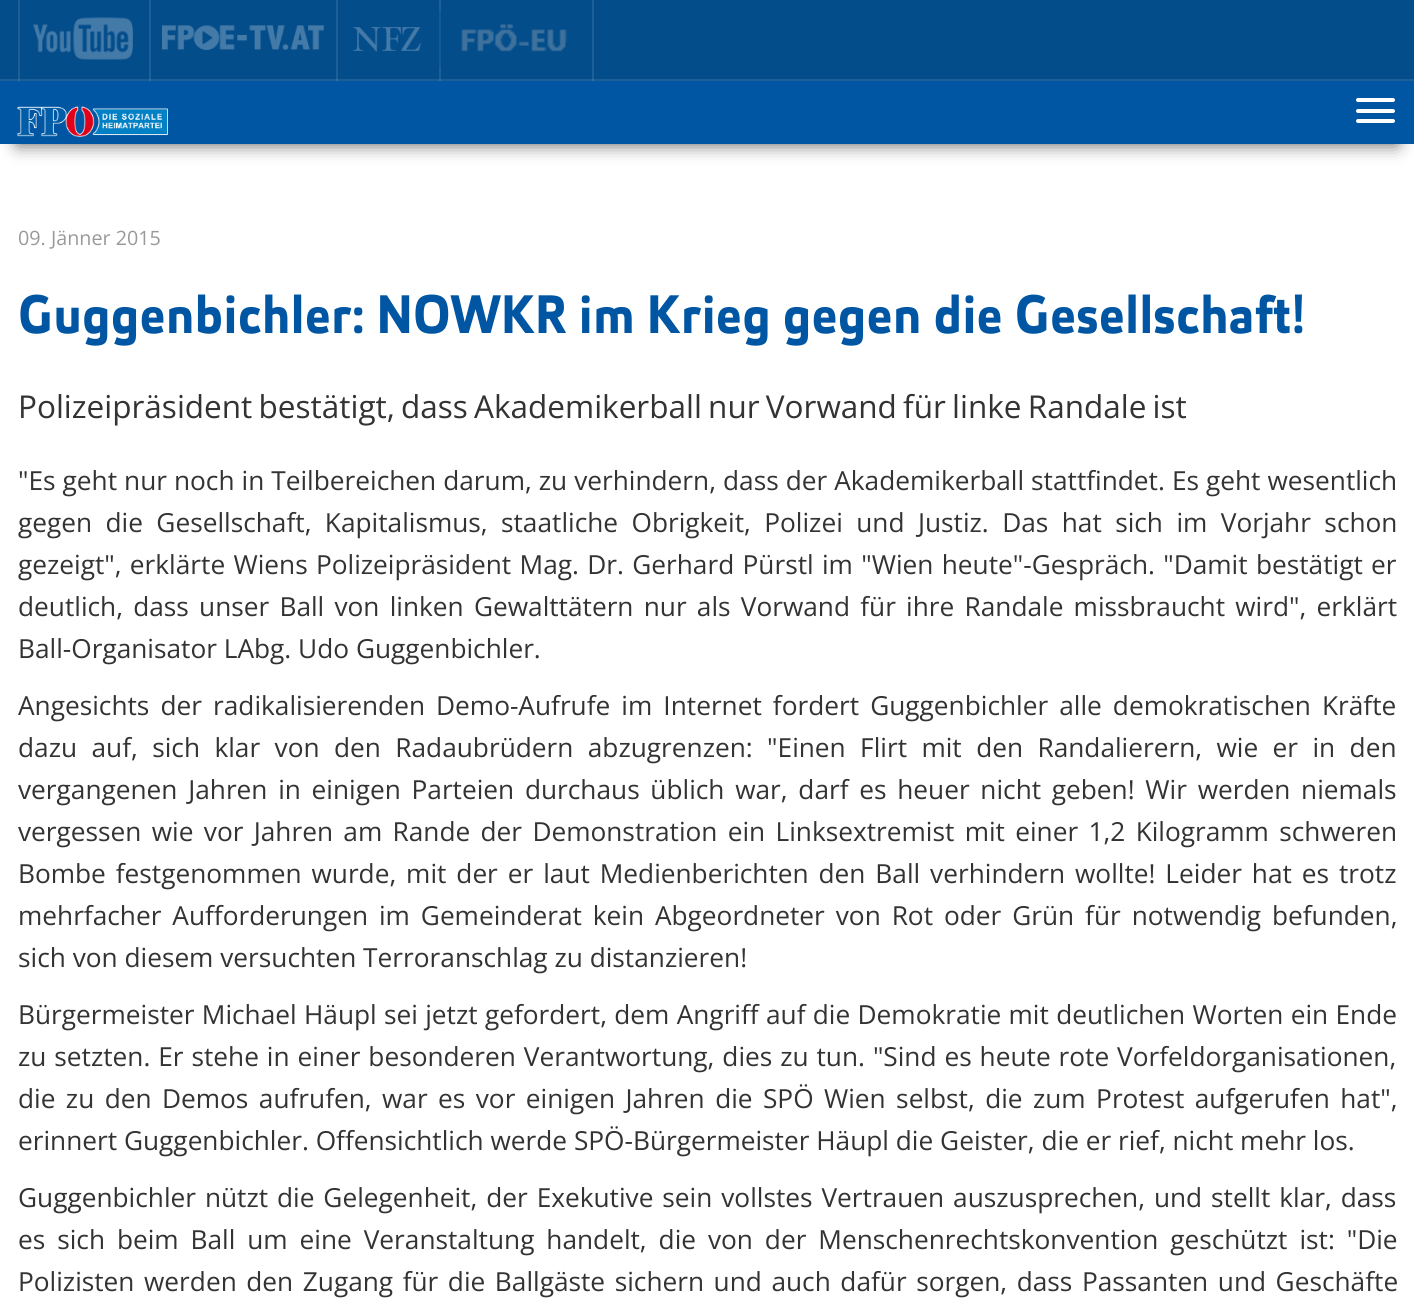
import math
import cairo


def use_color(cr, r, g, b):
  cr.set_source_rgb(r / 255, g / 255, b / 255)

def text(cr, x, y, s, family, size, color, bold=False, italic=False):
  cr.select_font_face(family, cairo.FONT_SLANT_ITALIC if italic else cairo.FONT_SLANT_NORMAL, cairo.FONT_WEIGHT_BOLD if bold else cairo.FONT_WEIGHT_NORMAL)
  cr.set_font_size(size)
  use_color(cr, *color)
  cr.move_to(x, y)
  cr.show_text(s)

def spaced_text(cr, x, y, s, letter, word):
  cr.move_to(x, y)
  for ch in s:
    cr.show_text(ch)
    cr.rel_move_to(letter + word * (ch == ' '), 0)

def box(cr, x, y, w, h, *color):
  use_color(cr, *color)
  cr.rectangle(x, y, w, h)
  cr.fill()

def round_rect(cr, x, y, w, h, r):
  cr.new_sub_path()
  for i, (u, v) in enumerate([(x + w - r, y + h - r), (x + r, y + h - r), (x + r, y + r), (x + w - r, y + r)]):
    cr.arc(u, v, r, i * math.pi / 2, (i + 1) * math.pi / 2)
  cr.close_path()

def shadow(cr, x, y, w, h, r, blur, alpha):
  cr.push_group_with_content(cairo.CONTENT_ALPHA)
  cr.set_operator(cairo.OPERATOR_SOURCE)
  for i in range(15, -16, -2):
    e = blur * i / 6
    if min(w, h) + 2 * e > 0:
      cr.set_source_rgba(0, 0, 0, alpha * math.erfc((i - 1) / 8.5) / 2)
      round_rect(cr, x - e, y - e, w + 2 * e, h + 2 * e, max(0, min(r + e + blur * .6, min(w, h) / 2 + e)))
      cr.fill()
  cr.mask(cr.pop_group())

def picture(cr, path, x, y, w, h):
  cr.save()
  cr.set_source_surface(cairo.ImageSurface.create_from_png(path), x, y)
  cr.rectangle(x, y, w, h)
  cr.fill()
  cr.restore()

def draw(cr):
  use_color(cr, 255, 255, 255)
  cr.paint()
  box(cr, 0, 0, 1414, 79, 4, 77, 139)
  box(cr, 592, 0, 2, 81, 29, 95, 151)
  box(cr, 439, 0, 2, 81, 29, 95, 151)
  box(cr, 336, 0, 2, 81, 29, 95, 151)
  box(cr, 18, 0, 2, 81, 29, 95, 151)
  box(cr, 149, 0, 2, 81, 29, 95, 151)
  box(cr, 0, 79, 1414, 2, 29, 95, 151)
  box(cr, 592, 79, 2, 2, 52, 111, 161)
  box(cr, 439, 79, 2, 2, 52, 111, 161)
  box(cr, 336, 79, 2, 2, 52, 111, 161)
  box(cr, 18, 79, 2, 2, 52, 111, 161)
  box(cr, 149, 79, 2, 2, 52, 111, 161)
  picture(cr, "img_01.png", 33, 17, 100, 43)
  picture(cr, "img_02.png", 162, 25, 162, 25)
  picture(cr, "img_03.png", 353, 27, 68, 25)
  picture(cr, "img_04.png", 439, 10, 128, 57)
  use_color(cr, 88, 88, 88)
  shadow(cr, 18, 116, 1379, 28, 0, 9, 1)
  box(cr, 0, 81, 1414, 63, 0, 86, 162)
  picture(cr, "img_05.png", 17, 106, 151, 31)
  use_color(cr, 255, 255, 255)
  round_rect(cr, 1356, 98, 39, 4, 2)
  cr.fill()
  round_rect(cr, 1356, 109, 39, 4, 2)
  cr.fill()
  round_rect(cr, 1356, 119, 39, 4, 2)
  cr.fill()
  text(cr, 18, 245, "09. Jänner 2015", "Open Sans", 19.75, (153, 153, 153))
  text(cr, 18, 333, "Guggenbichler: NOWKR im Krieg gegen die Gesellschaft!", "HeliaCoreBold", 54.25, (0, 86, 162), bold=True)
  cr.select_font_face("Open Sans")
  cr.set_font_size(31.5)
  use_color(cr, 51, 51, 51)
  spaced_text(cr, 18, 418, "Polizeipräsident bestätigt, dass Akademikerball nur Vorwand für linke Randale ist", 0, -2)
  cr.set_font_size(26.25)
  spaced_text(cr, 18, 490, "\"Es geht nur noch in Teilbereichen darum, zu verhindern, dass der Akademikerball stattfindet. Es geht wesentlich", 0, 0.2)
  spaced_text(cr, 18, 532, "gegen die Gesellschaft, Kapitalismus, staatliche Obrigkeit, Polizei und Justiz. Das hat sich im Vorjahr schon", 0, 6.6)
  spaced_text(cr, 18, 574, "gezeigt\", erklärte Wiens Polizeipräsident Mag. Dr. Gerhard Pürstl im \"Wien heute\"-Gespräch. \"Damit bestätigt er", 0, 1.5)
  spaced_text(cr, 18, 616, "deutlich, dass unser Ball von linken Gewalttätern nur als Vorwand für ihre Randale missbraucht wird\", erklärt", 0, 3.4)
  text(cr, 18, 658, "Ball-Organisator LAbg. Udo Guggenbichler.", "Open Sans", 26.25, (51, 51, 51))
  spaced_text(cr, 18, 715, "Angesichts der radikalisierenden Demo-Aufrufe im Internet fordert Guggenbichler alle demokratischen Kräfte", 0, 4.25)
  spaced_text(cr, 18, 757, "dazu auf, sich klar von den Radaubrüdern abzugrenzen: \"Einen Flirt mit den Randalierern, wie er in den", 0, 7.6)
  spaced_text(cr, 18, 799, "vergangenen Jahren in einigen Parteien durchaus üblich war, darf es heuer nicht geben! Wir werden niemals", 0, 3.9)
  spaced_text(cr, 18, 841, "vergessen wie vor Jahren am Rande der Demonstration ein Linksextremist mit einer 1,2 Kilogramm schweren", 0, 3.5)
  spaced_text(cr, 18, 883, "Bombe festgenommen wurde, mit der er laut Medienberichten den Ball verhindern wollte! Leider hat es trotz", 0, 3.1)
  spaced_text(cr, 18, 925, "mehrfacher Aufforderungen im Gemeinderat kein Abgeordneter von Rot oder Grün für notwendig befunden,", 0, 4.1)
  text(cr, 18, 967, "sich von diesem versuchten Terroranschlag zu distanzieren!", "Open Sans", 26.25, (51, 51, 51))
  spaced_text(cr, 18, 1024, "Bürgermeister Michael Häupl sei jetzt gefordert, dem Angriff auf die Demokratie mit deutlichen Worten ein Ende", 0, 0.5)
  spaced_text(cr, 18, 1066, "zu setzten. Er stehe in einer besonderen Verantwortung, dies zu tun. \"Sind es heute rote Vorfeldorganisationen,", 0, 1.1)
  spaced_text(cr, 18, 1108, "die zu den Demos aufrufen, war es vor einigen Jahren die SPÖ Wien selbst, die zum Protest aufgerufen hat\",", 0, 3.6)
  text(cr, 18, 1150, "erinnert Guggenbichler. Offensichtlich werde SPÖ-Bürgermeister Häupl die Geister, die er rief, nicht mehr los.", "Open Sans", 26.25, (51, 51, 51))
  spaced_text(cr, 18, 1207, "Guggenbichler nützt die Gelegenheit, der Exekutive sein vollstes Vertrauen auszusprechen, und stellt klar, dass", 0, 2.1)
  spaced_text(cr, 18, 1249, "es sich beim Ball um eine Veranstaltung handelt, die von der Menschenrechtskonvention geschützt ist: \"Die", 0, 5.1)
  spaced_text(cr, 18, 1291, "Polizisten werden den Zugang für die Ballgäste sichern und auch dafür sorgen, dass Passanten und Geschäfte", 0, 2.75)


surface = cairo.ImageSurface(cairo.FORMAT_RGB24, 1414, 1298)
cr = cairo.Context(surface)
options = cairo.FontOptions()
options.set_hint_metrics(cairo.HINT_METRICS_OFF)
options.set_hint_style(cairo.HINT_STYLE_NONE)
cr.set_font_options(options)
cr.set_miter_limit(4)
draw(cr)
surface.write_to_png("out.png")
